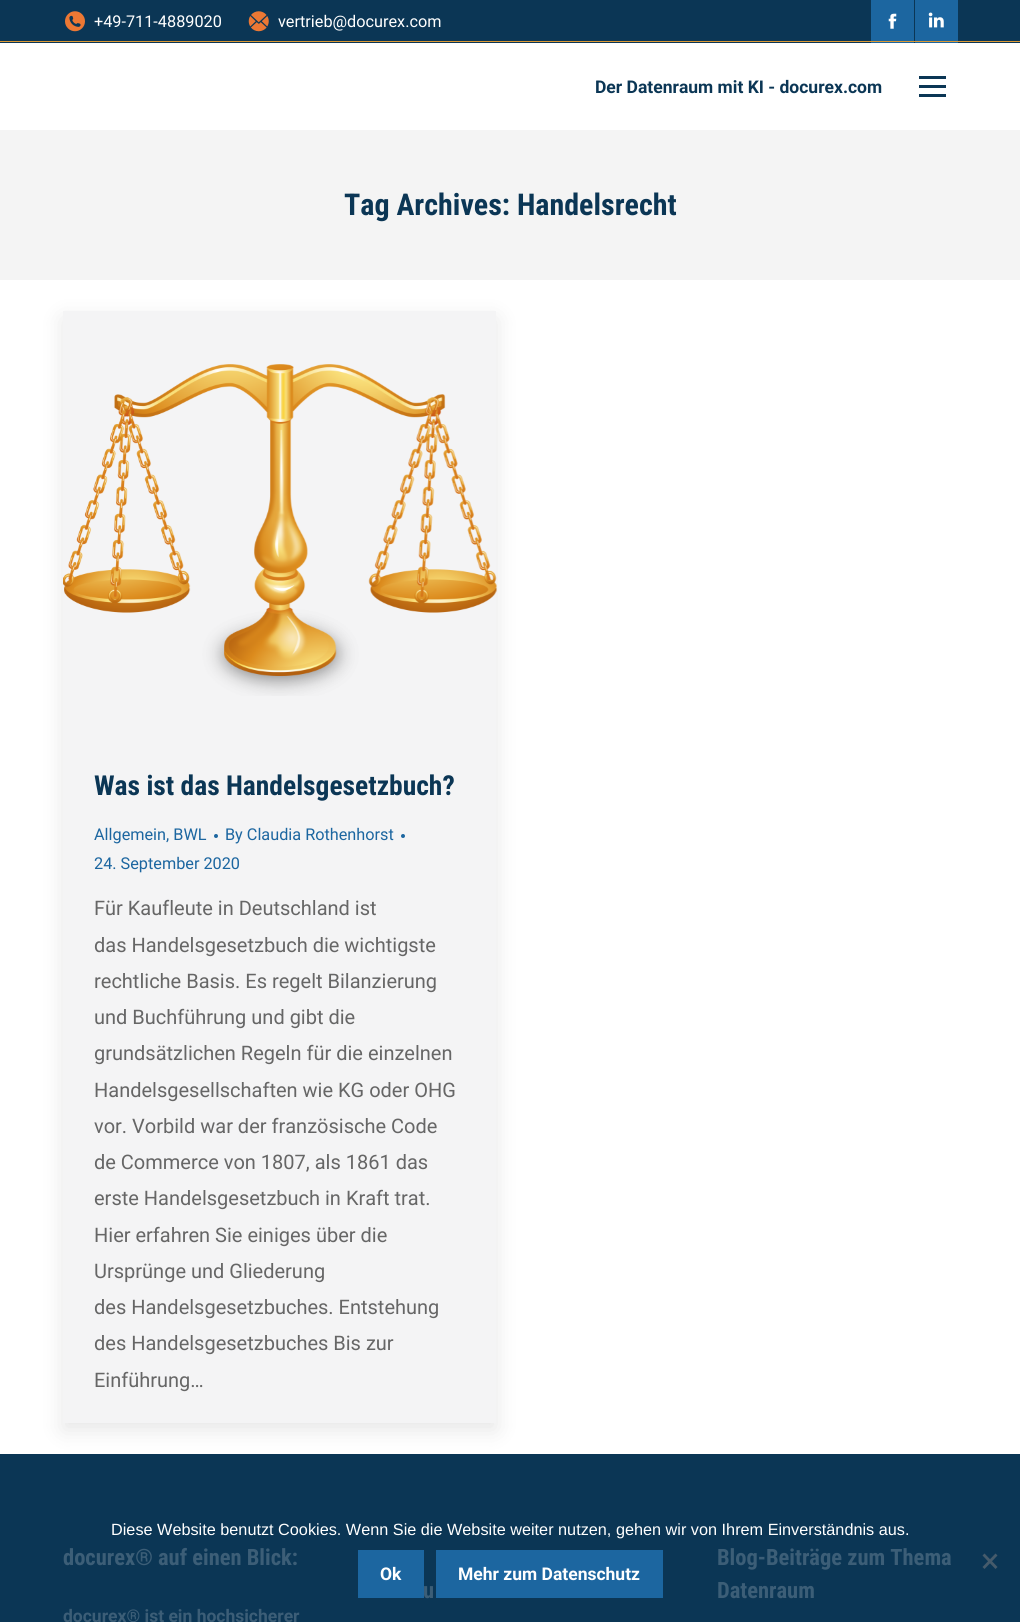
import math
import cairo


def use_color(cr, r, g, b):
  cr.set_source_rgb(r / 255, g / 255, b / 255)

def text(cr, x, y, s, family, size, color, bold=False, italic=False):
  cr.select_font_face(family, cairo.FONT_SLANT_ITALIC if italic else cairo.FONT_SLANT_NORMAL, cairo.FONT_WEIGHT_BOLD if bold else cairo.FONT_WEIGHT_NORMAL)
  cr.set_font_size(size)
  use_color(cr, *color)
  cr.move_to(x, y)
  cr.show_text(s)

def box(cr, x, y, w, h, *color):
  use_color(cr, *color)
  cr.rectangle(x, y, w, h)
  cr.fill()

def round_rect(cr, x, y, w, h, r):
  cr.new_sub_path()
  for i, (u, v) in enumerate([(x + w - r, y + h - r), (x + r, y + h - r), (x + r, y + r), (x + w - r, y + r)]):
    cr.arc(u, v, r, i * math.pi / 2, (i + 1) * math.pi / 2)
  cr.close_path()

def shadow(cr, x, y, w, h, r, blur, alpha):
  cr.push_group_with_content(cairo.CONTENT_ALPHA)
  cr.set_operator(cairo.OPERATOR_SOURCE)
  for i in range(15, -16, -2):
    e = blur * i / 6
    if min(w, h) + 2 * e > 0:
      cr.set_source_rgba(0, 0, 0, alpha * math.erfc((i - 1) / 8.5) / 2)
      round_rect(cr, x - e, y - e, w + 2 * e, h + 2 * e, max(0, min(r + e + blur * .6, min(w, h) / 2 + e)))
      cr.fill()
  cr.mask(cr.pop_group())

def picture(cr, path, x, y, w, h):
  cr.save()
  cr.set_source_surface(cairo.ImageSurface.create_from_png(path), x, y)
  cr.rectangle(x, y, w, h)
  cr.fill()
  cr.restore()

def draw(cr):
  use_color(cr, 255, 255, 255)
  cr.paint()
  box(cr, 0, 0, 1020, 43, 11, 54, 85)
  picture(cr, "img_01.png", 65, 11, 20, 21)
  picture(cr, "img_02.png", 248, 11, 21, 21)
  box(cr, 871, 0, 43, 43, 28, 102, 160)
  picture(cr, "img_03.png", 888, 13, 9, 16)
  box(cr, 915, 0, 43, 43, 28, 102, 160)
  picture(cr, "img_04.png", 928, 12, 16, 16)
  box(cr, 0, 41, 1020, 1, 221, 153, 51)
  box(cr, 919, 76, 27, 3, 11, 54, 85)
  box(cr, 919, 85, 27, 3, 11, 54, 85)
  box(cr, 919, 94, 27, 3, 11, 54, 85)
  box(cr, 0, 130, 1020, 150, 244, 244, 244)
  box(cr, 0, 1454, 1020, 168, 11, 54, 85)
  cr.save()
  cr.set_fill_rule(cairo.FILL_RULE_EVEN_ODD)
  cr.new_path()
  cr.move_to(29, 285)
  cr.line_to(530, 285)
  cr.line_to(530, 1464)
  cr.line_to(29, 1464)
  cr.close_path()
  cr.move_to(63, 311)
  cr.line_to(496, 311)
  cr.line_to(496, 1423)
  cr.line_to(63, 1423)
  cr.close_path()
  cr.clip()
  use_color(cr, 0, 0, 0)
  shadow(cr, 63, 319, 433, 1111, 0, 11, 0.1)
  cr.restore()
  cr.set_source_rgba(0.447, 0.467, 0.49, 0.08)
  cr.rectangle(63, 311, 433, 1112)
  cr.fill()
  picture(cr, "img_05.png", 63, 364, 434, 332)
  use_color(cr, 28, 102, 160)
  cr.arc(216, 836, 2, 0, 2 * math.pi)
  cr.fill()
  cr.arc(403, 836, 2, 0, 2 * math.pi)
  cr.fill()
  use_color(cr, 70, 91, 107)
  cr.new_path()
  cr.move_to(995.5, 1553.5)
  cr.line_to(997.5, 1555.5)
  cr.line_to(984.5, 1569)
  cr.line_to(982.5, 1567)
  cr.close_path()
  cr.fill()
  cr.new_path()
  cr.move_to(982.5, 1555.5)
  cr.line_to(984.5, 1553.5)
  cr.line_to(997.5, 1567)
  cr.line_to(995.5, 1569)
  cr.close_path()
  cr.fill()
  box(cr, 436, 1550, 227, 48, 28, 102, 160)
  text(cr, 94, 27, "+49-711-4889020", "Roboto", 16.25, (255, 255, 255))
  text(cr, 278, 27, "vertrieb@docurex.com", "Roboto", 16.25, (255, 255, 255))
  text(cr, 595, 93, "Der Datenraum mit KI - docurex.com", "Roboto", 17.5, (11, 54, 85), bold=True)
  text(cr, 344, 215, "Tag Archives: Handelsrecht", "Roboto Condensed", 30, (11, 54, 85), bold=True)
  text(cr, 94, 795, "Was ist das Handelsgesetzbuch?", "Roboto Condensed", 27.5, (11, 54, 85), bold=True)
  text(cr, 94, 840, "Allgemein, BWL", "Roboto", 16.25, (28, 102, 160))
  text(cr, 225, 840, "By Claudia Rothenhorst", "Roboto", 16.25, (28, 102, 160))
  text(cr, 94, 869, "24. September 2020", "Roboto", 16.25, (28, 102, 160))
  text(cr, 94, 915, "Für Kaufleute in Deutschland ist", "Roboto", 20, (102, 102, 102))
  text(cr, 94, 952, "das Handelsgesetzbuch die wichtigste", "Roboto", 20, (102, 102, 102))
  text(cr, 94, 988, "rechtliche Basis. Es regelt Bilanzierung", "Roboto", 20, (102, 102, 102))
  text(cr, 94, 1024, "und Buchführung und gibt die", "Roboto", 20, (102, 102, 102))
  text(cr, 94, 1060, "grundsätzlichen Regeln für die einzelnen", "Roboto", 20, (102, 102, 102))
  text(cr, 94, 1097, "Handelsgesellschaften wie KG oder OHG", "Roboto", 20, (102, 102, 102))
  text(cr, 94, 1133, "vor. Vorbild war der französische Code", "Roboto", 20, (102, 102, 102))
  text(cr, 94, 1169, "de Commerce von 1807, als 1861 das", "Roboto", 20, (102, 102, 102))
  text(cr, 94, 1205, "erste Handelsgesetzbuch in Kraft trat.", "Roboto", 20, (102, 102, 102))
  text(cr, 94, 1242, "Hier erfahren Sie einiges über die", "Roboto", 20, (102, 102, 102))
  text(cr, 94, 1278, "Ursprünge und Gliederung", "Roboto", 20, (102, 102, 102))
  text(cr, 94, 1314, "des Handelsgesetzbuches. Entstehung", "Roboto", 20, (102, 102, 102))
  text(cr, 94, 1350, "des Handelsgesetzbuches Bis zur", "Roboto", 20, (102, 102, 102))
  text(cr, 94, 1387, "Einführung…", "Roboto", 20, (102, 102, 102))
  text(cr, 63, 1565, "docurex® auf einen Blick:", "Roboto Condensed", 22.5, (60, 94, 119), bold=True)
  text(cr, 63, 1622, "docurex® ist ein hochsicherer", "Roboto", 17.5, (60, 94, 119), bold=True)
  text(cr, 423, 1598, "u", "Roboto Condensed", 22.5, (60, 94, 119), bold=True)
  text(cr, 717, 1565, "Blog-Beiträge zum Thema", "Roboto Condensed", 22.5, (60, 94, 119), bold=True)
  text(cr, 717, 1598, "Datenraum", "Roboto Condensed", 22.5, (60, 94, 119), bold=True)
  text(cr, 111, 1535, "Diese Website benutzt Cookies. Wenn Sie die Website weiter nutzen, gehen wir von Ihrem Einverständnis aus.", "Liberation Sans", 16.25, (255, 255, 255))
  box(cr, 358, 1550, 66, 48, 28, 102, 160)
  text(cr, 380, 1580, "Ok", "Roboto", 17.5, (255, 255, 255), bold=True)
  text(cr, 458, 1580, "Mehr zum Datenschutz", "Roboto", 17.5, (255, 255, 255), bold=True)


surface = cairo.ImageSurface(cairo.FORMAT_RGB24, 1020, 1622)
cr = cairo.Context(surface)
options = cairo.FontOptions()
options.set_hint_metrics(cairo.HINT_METRICS_OFF)
options.set_hint_style(cairo.HINT_STYLE_NONE)
cr.set_font_options(options)
cr.set_miter_limit(4)
draw(cr)
surface.write_to_png("out.png")
